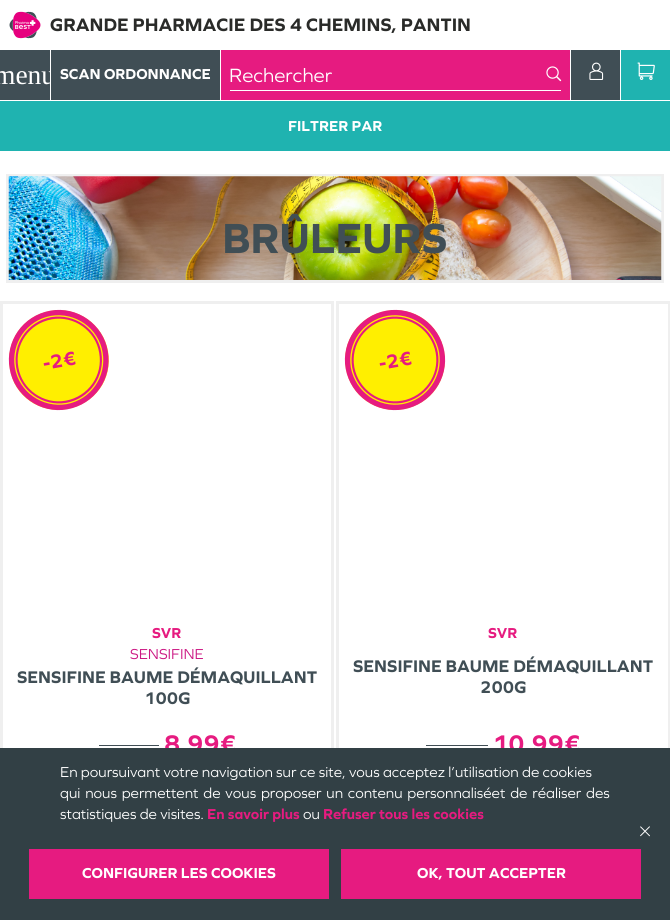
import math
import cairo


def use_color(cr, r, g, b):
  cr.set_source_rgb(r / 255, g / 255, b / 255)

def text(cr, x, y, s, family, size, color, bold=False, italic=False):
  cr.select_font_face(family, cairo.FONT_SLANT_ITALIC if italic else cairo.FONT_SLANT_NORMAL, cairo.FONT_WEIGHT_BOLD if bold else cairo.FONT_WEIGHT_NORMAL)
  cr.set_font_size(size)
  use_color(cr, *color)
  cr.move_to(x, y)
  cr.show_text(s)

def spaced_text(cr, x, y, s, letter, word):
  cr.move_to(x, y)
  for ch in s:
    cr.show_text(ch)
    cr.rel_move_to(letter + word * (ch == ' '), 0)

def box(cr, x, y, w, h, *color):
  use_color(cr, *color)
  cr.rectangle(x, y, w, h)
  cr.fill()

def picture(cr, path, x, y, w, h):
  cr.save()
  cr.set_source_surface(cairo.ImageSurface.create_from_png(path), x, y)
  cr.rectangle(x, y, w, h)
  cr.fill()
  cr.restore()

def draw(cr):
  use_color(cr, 255, 255, 255)
  cr.paint()
  picture(cr, "img_01.png", 9, 11, 32, 28)
  box(cr, 0, 50, 50, 50, 64, 78, 85)
  box(cr, 221, 50, 349, 50, 230, 27, 128)
  box(cr, 230, 90, 331, 1, 255, 255, 255)
  picture(cr, "img_02.png", 546, 66, 16, 16)
  box(cr, 571, 50, 49, 50, 64, 78, 85)
  picture(cr, "img_03.png", 589, 62, 15, 18)
  box(cr, 621, 50, 49, 50, 31, 179, 176)
  picture(cr, "img_04.png", 637, 62, 18, 18)
  box(cr, 0, 101, 670, 50, 31, 179, 176)
  cr.rectangle(7.5, 175.5, 655, 106)
  use_color(cr, 239, 239, 239)
  cr.set_line_width(3)
  cr.stroke()
  picture(cr, "img_05.png", 8, 176, 654, 104)
  box(cr, 0, 301, 334, 3, 239, 239, 239)
  box(cr, 331, 301, 3, 447, 239, 239, 239)
  box(cr, 0, 301, 3, 447, 239, 239, 239)
  use_color(cr, 255, 239, 0)
  cr.new_path()
  cr.move_to(50, 311)
  cr.curve_to(77, 306, 103, 324, 108, 351)
  cr.curve_to(113, 379, 95, 404, 67, 409)
  cr.curve_to(40, 414, 14, 396, 10, 369)
  cr.curve_to(5, 341, 23, 316, 50, 311)
  cr.close_path()
  cr.fill()
  cr.new_path()
  cr.move_to(51, 315)
  cr.curve_to(75.5, 310.5, 99.5, 327.5, 103.5, 352)
  cr.curve_to(108, 377, 91.5, 400.5, 66.5, 405)
  cr.curve_to(42, 409.5, 18, 392.5, 14, 368)
  cr.curve_to(9.5, 343, 26, 319.5, 51, 315)
  cr.close_path()
  use_color(cr, 230, 27, 128)
  cr.set_line_width(8.8)
  cr.stroke()
  box(cr, 99, 745, 60, 1, 64, 78, 85)
  box(cr, 336, 301, 334, 3, 239, 239, 239)
  box(cr, 668, 301, 2, 447, 239, 239, 239)
  box(cr, 336, 301, 3, 447, 239, 239, 239)
  use_color(cr, 255, 239, 0)
  cr.new_path()
  cr.move_to(386, 311)
  cr.curve_to(414, 306, 439, 324, 444, 351)
  cr.curve_to(449, 379, 431, 404, 404, 409)
  cr.curve_to(376, 414, 351, 396, 346, 369)
  cr.curve_to(341, 341, 359, 316, 386, 311)
  cr.close_path()
  cr.fill()
  cr.new_path()
  cr.move_to(387, 315)
  cr.curve_to(412, 310.5, 435.5, 327.5, 440, 352)
  cr.curve_to(444.5, 377, 427.5, 400.5, 403, 405)
  cr.curve_to(378, 409.5, 354.5, 392.5, 350, 368)
  cr.curve_to(345.5, 343, 362.5, 319.5, 387, 315)
  cr.close_path()
  use_color(cr, 230, 27, 128)
  cr.stroke()
  box(cr, 426, 745, 62, 1, 64, 78, 85)
  text(cr, 50, 31, "GRANDE PHARMACIE DES 4 CHEMINS, PANTIN", "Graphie", 18.75, (42, 43, 41), bold=True)
  text(cr, -6, 84, "menu", "Liberation Serif", 27.5, (255, 255, 255))
  box(cr, 51, 50, 169, 50, 64, 78, 85)
  text(cr, 60, 79, "SCAN ORDONNANCE", "Graphie", 15, (255, 255, 255), bold=True)
  text(cr, 229, 82, "Rechercher", "Graphie", 20, (255, 255, 255))
  text(cr, 288, 131, "FILTRER PAR", "Graphie", 15, (255, 255, 255), bold=True)
  text(cr, 222, 253, "BRÛLEURS", "Graphie", 43.75, (64, 78, 85), bold=True)
  cr.save()
  cr.translate(44, 370)
  cr.rotate(-10 * math.pi / 180)
  text(cr, 0, 0, "-2€", "Graphie", 20, (230, 27, 128), bold=True)
  cr.restore()
  cr.new_path()
  cr.move_to(51, 316.5)
  cr.curve_to(75, 312.5, 98, 328.5, 102, 352.5)
  cr.curve_to(106, 376.5, 90.5, 399, 66.5, 403.5)
  cr.curve_to(42.5, 407.5, 19.5, 391.5, 15.5, 367.5)
  cr.curve_to(11.5, 343.5, 27, 321, 51, 316.5)
  cr.close_path()
  use_color(cr, 255, 239, 0)
  cr.set_line_width(1.3)
  cr.stroke()
  text(cr, 152, 638, "SVR", "Graphie", 15, (230, 27, 128), bold=True)
  text(cr, 130, 659, "SENSIFINE", "Graphie", 15, (204, 25, 132))
  text(cr, 17, 683, "SENSIFINE BAUME DÉMAQUILLANT", "Graphie", 17.5, (64, 78, 85), bold=True)
  text(cr, 144, 704, "100G", "Graphie", 17.5, (64, 78, 85), bold=True)
  text(cr, 164, 752, "8,99€", "Graphie", 25, (230, 27, 128), bold=True)
  cr.save()
  cr.translate(380, 370)
  cr.rotate(-10 * math.pi / 180)
  text(cr, 0, 0, "-2€", "Graphie", 20, (230, 27, 128), bold=True)
  cr.restore()
  cr.new_path()
  cr.move_to(387.5, 316.5)
  cr.curve_to(411.5, 312.5, 434, 328.5, 438.5, 352.5)
  cr.curve_to(442.5, 376.5, 426.5, 399, 402.5, 403.5)
  cr.curve_to(378.5, 407.5, 356, 391.5, 351.5, 367.5)
  cr.curve_to(347.5, 343.5, 363.5, 321, 387.5, 316.5)
  cr.close_path()
  use_color(cr, 255, 239, 0)
  cr.stroke()
  text(cr, 488, 638, "SVR", "Graphie", 15, (230, 27, 128), bold=True)
  text(cr, 353, 672, "SENSIFINE BAUME DÉMAQUILLANT", "Graphie", 17.5, (64, 78, 85), bold=True)
  text(cr, 480, 693, "200G", "Graphie", 17.5, (64, 78, 85), bold=True)
  text(cr, 492, 752, "10,99€", "Graphie", 25, (230, 27, 128), bold=True)
  box(cr, 0, 748, 670, 172, 50, 64, 69)
  text(cr, 60, 777, "En poursuivant votre navigation sur ce site, vous acceptez l’utilisation de cookies", "Graphie", 15, (255, 255, 255))
  spaced_text(cr, 60, 798, "qui nous permettent de vous proposer un contenu personnaliséet de réaliser des", 0, 1.5)
  text(cr, 60, 819, "statistiques de visites.", "Graphie", 15, (255, 255, 255))
  text(cr, 207, 819, "En savoir plus", "Graphie", 15, (230, 27, 128), bold=True)
  text(cr, 303, 819, "ou", "Graphie", 15, (255, 255, 255))
  text(cr, 323, 819, "Refuser tous les cookies", "Graphie", 15, (230, 27, 128), bold=True)
  box(cr, 29, 849, 300, 50, 230, 27, 128)
  text(cr, 82, 878, "CONFIGURER LES COOKIES", "Graphie", 15, (255, 255, 255), bold=True)
  box(cr, 341, 849, 300, 50, 230, 27, 128)
  text(cr, 417, 878, "OK, TOUT ACCEPTER", "Graphie", 15, (255, 255, 255), bold=True)
  picture(cr, "img_06.png", 640, 826, 10, 11)


surface = cairo.ImageSurface(cairo.FORMAT_RGB24, 670, 920)
cr = cairo.Context(surface)
options = cairo.FontOptions()
options.set_hint_metrics(cairo.HINT_METRICS_OFF)
options.set_hint_style(cairo.HINT_STYLE_NONE)
cr.set_font_options(options)
cr.set_miter_limit(4)
draw(cr)
surface.write_to_png("out.png")
